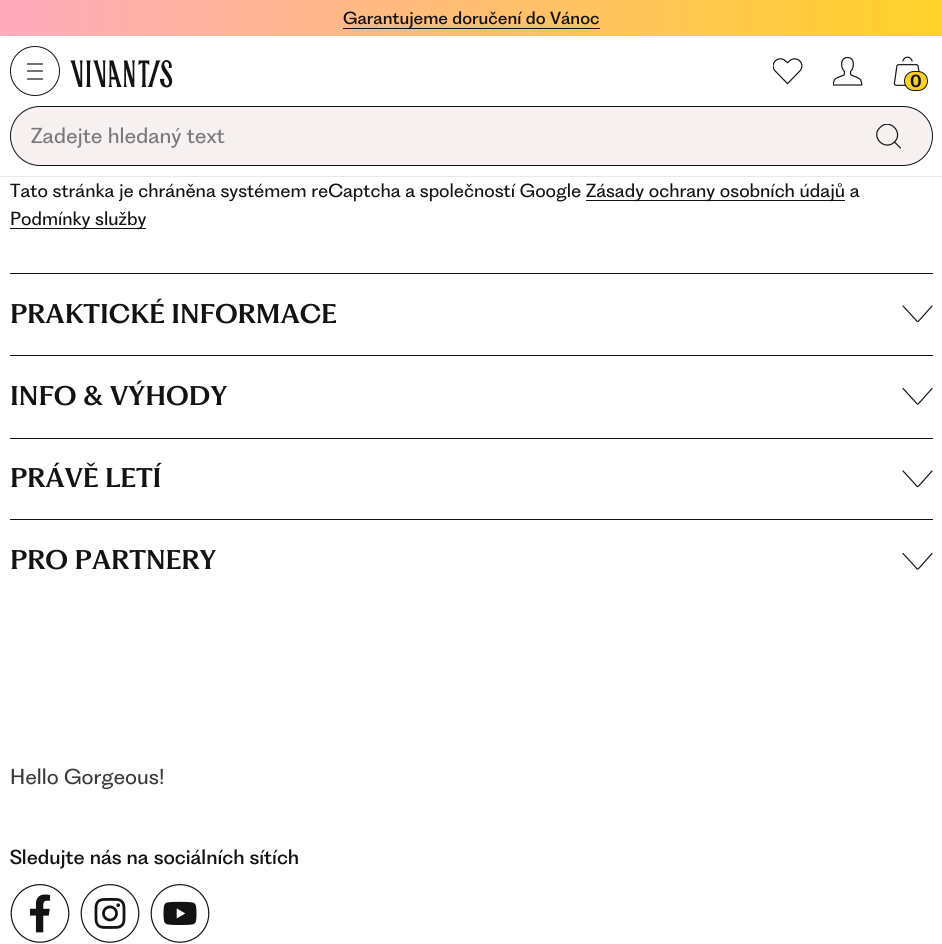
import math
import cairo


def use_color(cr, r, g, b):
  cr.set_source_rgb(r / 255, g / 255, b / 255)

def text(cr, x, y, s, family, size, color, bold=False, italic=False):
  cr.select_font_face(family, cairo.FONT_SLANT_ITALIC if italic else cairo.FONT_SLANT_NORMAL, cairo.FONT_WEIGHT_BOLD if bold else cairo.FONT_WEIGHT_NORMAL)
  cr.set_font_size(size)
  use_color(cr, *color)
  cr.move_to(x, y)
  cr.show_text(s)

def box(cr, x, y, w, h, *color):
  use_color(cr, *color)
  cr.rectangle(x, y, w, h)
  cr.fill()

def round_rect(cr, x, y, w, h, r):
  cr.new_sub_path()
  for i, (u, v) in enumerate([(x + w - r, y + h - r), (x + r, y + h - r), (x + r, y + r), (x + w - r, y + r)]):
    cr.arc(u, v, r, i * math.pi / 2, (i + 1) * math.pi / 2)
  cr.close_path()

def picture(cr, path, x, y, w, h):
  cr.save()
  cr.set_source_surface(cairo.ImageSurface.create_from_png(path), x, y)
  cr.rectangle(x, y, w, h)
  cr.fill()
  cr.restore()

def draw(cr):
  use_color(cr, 255, 255, 255)
  cr.paint()
  gradient = cairo.LinearGradient(0, 18, 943, 18)
  gradient.add_color_stop_rgba(0, 1, 0.667, 0.745, 1)
  gradient.add_color_stop_rgba(1, 1, 0.824, 0.157, 1)
  cr.set_source(gradient)
  cr.rectangle(0, 0, 942, 36)
  cr.fill()
  box(cr, 343, 28, 257, 1, 21, 19, 18)
  box(cr, 0, 176, 942, 1, 241, 229, 229)
  cr.arc(35, 71, 24.5, 0, 2 * math.pi)
  use_color(cr, 21, 19, 18)
  cr.set_line_width(1)
  cr.stroke()
  cr.new_path()
  cr.move_to(42.5, 64)
  cr.line_to(27.5, 64)
  cr.move_to(42.5, 71)
  cr.line_to(27.5, 71)
  cr.move_to(42.5, 79)
  cr.line_to(27.5, 79)
  cr.set_line_width(1.2)
  cr.set_line_cap(cairo.LINE_CAP_ROUND)
  cr.set_line_join(cairo.LINE_JOIN_ROUND)
  cr.stroke()
  picture(cr, "img_01.png", 70, 60, 103, 28)
  picture(cr, "img_02.png", 773, 58, 30, 27)
  picture(cr, "img_03.png", 833, 56, 30, 30)
  picture(cr, "img_04.png", 893, 56, 27, 30)
  use_color(cr, 255, 210, 40)
  round_rect(cr, 904.5, 71.5, 23, 19, 9.5)
  cr.fill_preserve()
  use_color(cr, 21, 19, 18)
  cr.set_line_width(1)
  cr.set_line_cap(cairo.LINE_CAP_BUTT)
  cr.set_line_join(cairo.LINE_JOIN_MITER)
  cr.stroke()
  use_color(cr, 246, 240, 240)
  round_rect(cr, 10.5, 106.5, 922, 59, 29.5)
  cr.fill_preserve()
  use_color(cr, 21, 19, 18)
  cr.stroke()
  cr.save()
  cr.rectangle(876, 124, 25, 25)
  cr.clip()
  cr.new_path()
  cr.move_to(894.5, 142)
  cr.curve_to(885, 151.5, 870, 137, 880, 127.5)
  cr.curve_to(889.5, 117.5, 904, 132.5, 894.5, 142)
  cr.close_path()
  cr.move_to(894.5, 142)
  cr.line_to(900.5, 148)
  cr.set_line_width(1.2)
  cr.set_line_cap(cairo.LINE_CAP_ROUND)
  cr.set_line_join(cairo.LINE_JOIN_ROUND)
  cr.stroke()
  cr.restore()
  box(cr, 586, 200, 259, 1, 21, 19, 18)
  box(cr, 10, 228, 136, 1, 21, 19, 18)
  box(cr, 10, 273, 923, 1, 21, 19, 18)
  cr.new_path()
  cr.move_to(903, 306)
  cr.line_to(915, 319)
  cr.curve_to(918, 322.5, 917, 322.5, 920.5, 319)
  cr.line_to(932, 306)
  cr.set_line_width(1.2)
  cr.set_line_cap(cairo.LINE_CAP_ROUND)
  cr.set_line_join(cairo.LINE_JOIN_ROUND)
  cr.stroke()
  box(cr, 10, 355, 923, 1, 21, 19, 18)
  cr.new_path()
  cr.move_to(903, 388.5)
  cr.line_to(915, 401.5)
  cr.curve_to(918, 405, 917, 405, 920.5, 401.5)
  cr.line_to(932, 388.5)
  cr.stroke()
  box(cr, 10, 438, 923, 1, 21, 19, 18)
  cr.new_path()
  cr.move_to(903, 471)
  cr.line_to(915, 484)
  cr.curve_to(918, 487.5, 917, 487.5, 920.5, 484)
  cr.line_to(932, 471)
  cr.stroke()
  box(cr, 10, 519, 923, 1, 21, 19, 18)
  cr.new_path()
  cr.move_to(903, 553.5)
  cr.line_to(915, 566.5)
  cr.curve_to(918, 570, 917, 570, 920.5, 566.5)
  cr.line_to(932, 553.5)
  cr.stroke()
  picture(cr, "img_05.png", 10, 884, 60, 59)
  picture(cr, "img_06.png", 80, 884, 60, 59)
  picture(cr, "img_07.png", 150, 884, 60, 59)
  text(cr, 343, 24, "Garantujeme doručení do Vánoc", "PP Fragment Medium", 16.25, (21, 19, 18))
  text(cr, 910, 87, "0", "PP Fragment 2 SemiBold", 16.25, (21, 19, 18))
  text(cr, 31, 143, "Zadejte hledaný text", "PP Fragment", 20, (120, 120, 120))
  text(cr, 10, 197, "Tato stránka je chráněna systémem reCaptcha a společností Google", "PP Fragment", 17.5, (21, 19, 18))
  text(cr, 586, 197, "Zásady ochrany osobních údajů a", "PP Fragment", 17.5, (21, 19, 18))
  text(cr, 10, 225, "Podmínky služby", "PP Fragment", 17.5, (21, 19, 18))
  text(cr, 10, 323, "PRAKTICKÉ INFORMACE", "PP Fragment SemiBold", 25, (21, 19, 18))
  text(cr, 10, 405, "INFO & VÝHODY", "PP Fragment SemiBold", 25, (21, 19, 18))
  text(cr, 10, 487, "PRÁVĚ LETÍ", "PP Fragment SemiBold", 25, (21, 19, 18))
  text(cr, 10, 569, "PRO PARTNERY", "PP Fragment SemiBold", 25, (21, 19, 18))
  text(cr, 10, 784, "Hello Gorgeous!", "PP Fragment", 20, (60, 58, 57))
  text(cr, 10, 864, "Sledujte nás na sociálních sítích", "PP Fragment Medium", 18.75, (21, 19, 18))


surface = cairo.ImageSurface(cairo.FORMAT_RGB24, 942, 944)
cr = cairo.Context(surface)
options = cairo.FontOptions()
options.set_hint_metrics(cairo.HINT_METRICS_OFF)
options.set_hint_style(cairo.HINT_STYLE_NONE)
cr.set_font_options(options)
cr.set_miter_limit(4)
draw(cr)
surface.write_to_png("out.png")
